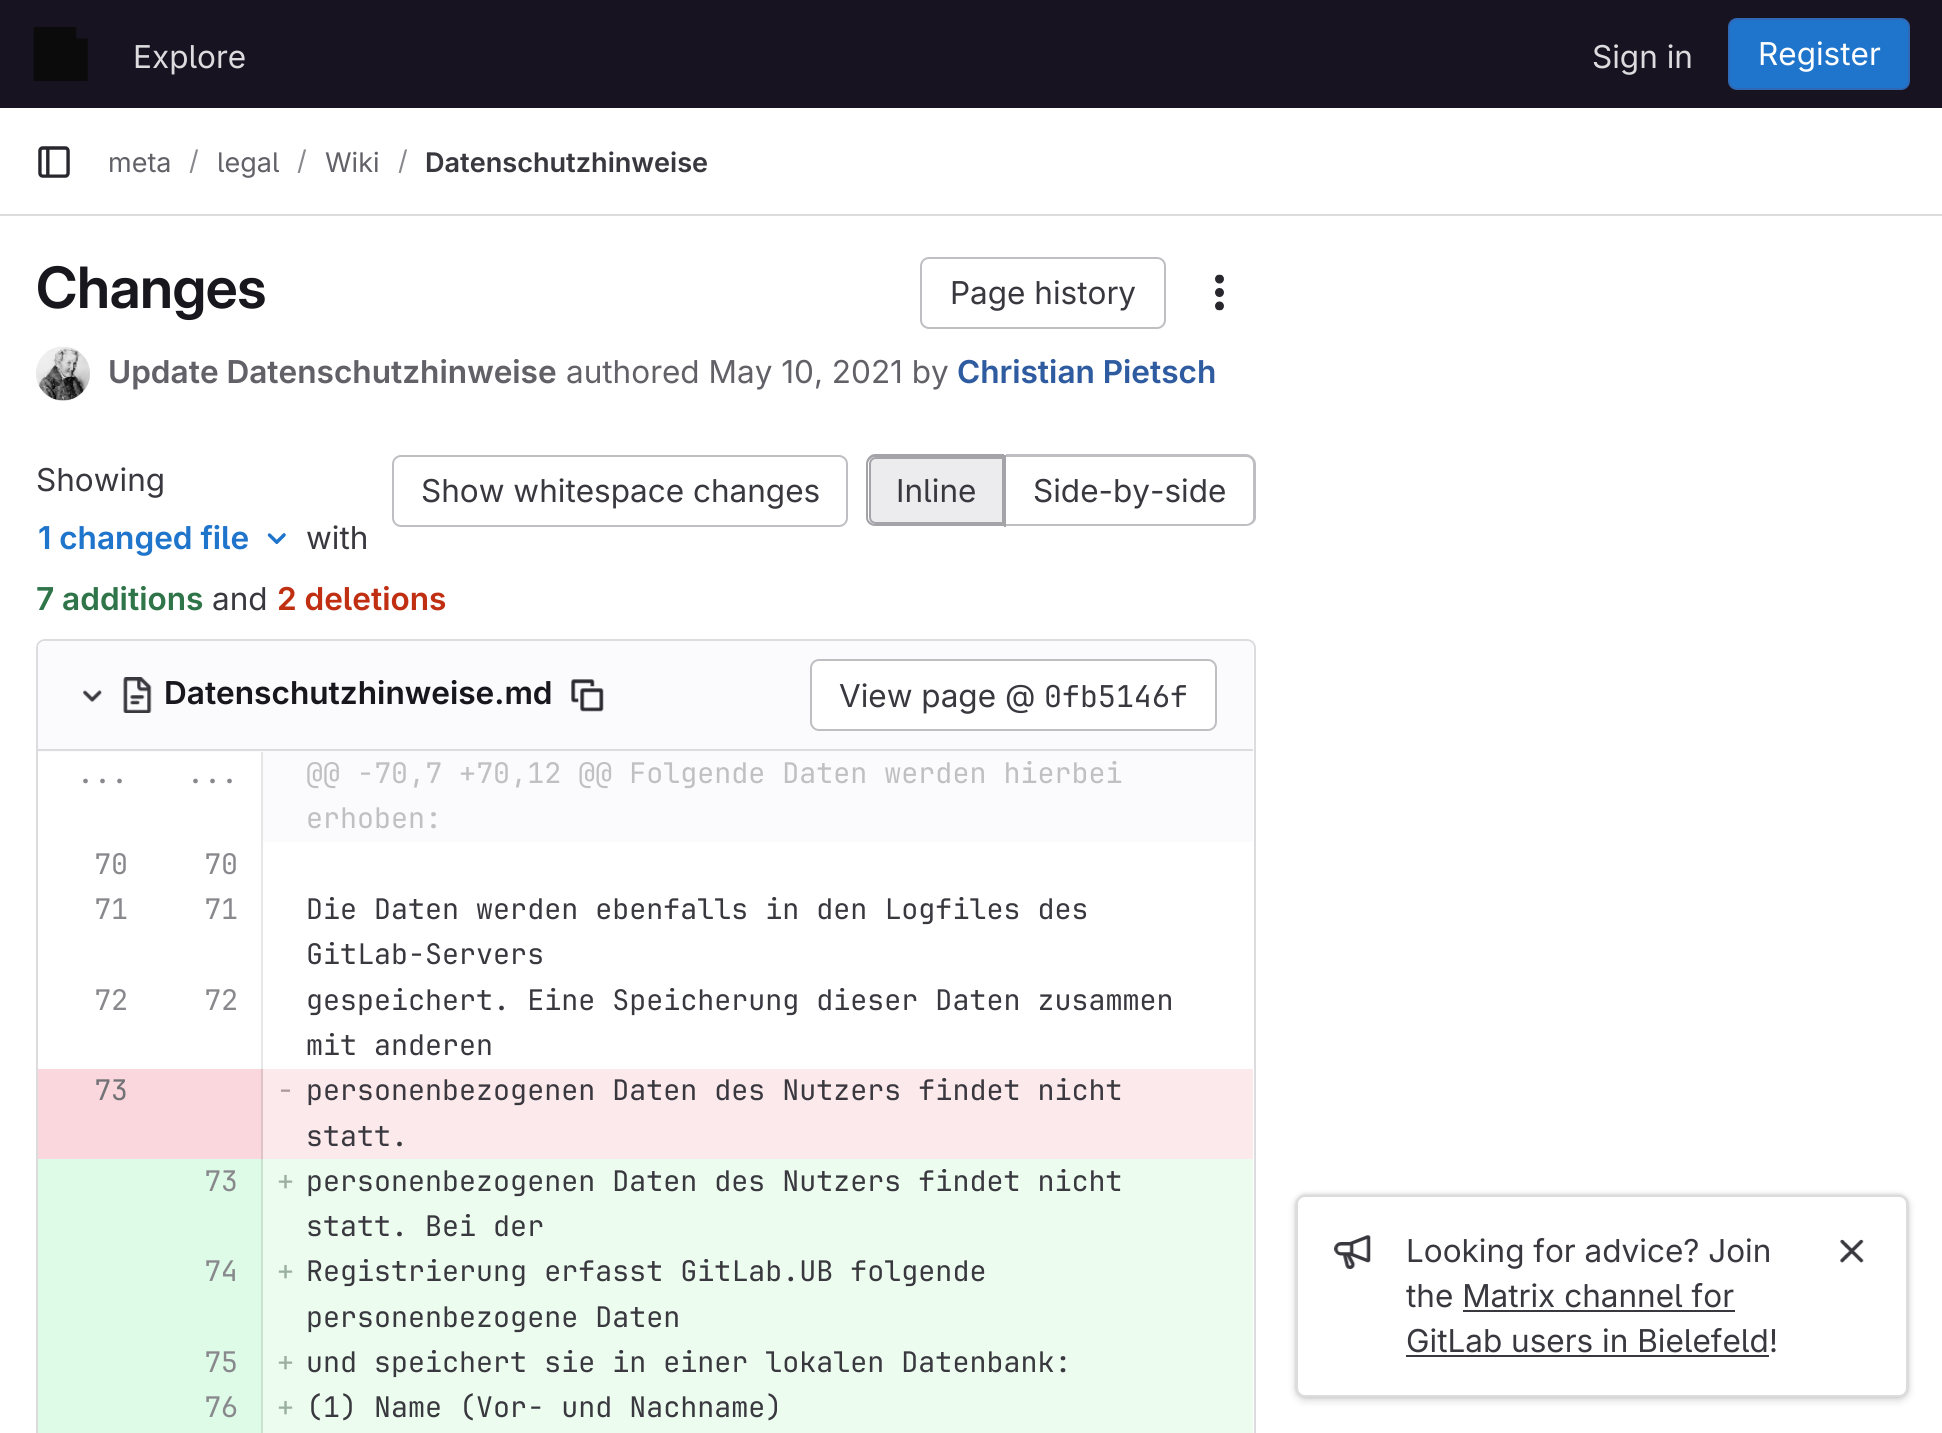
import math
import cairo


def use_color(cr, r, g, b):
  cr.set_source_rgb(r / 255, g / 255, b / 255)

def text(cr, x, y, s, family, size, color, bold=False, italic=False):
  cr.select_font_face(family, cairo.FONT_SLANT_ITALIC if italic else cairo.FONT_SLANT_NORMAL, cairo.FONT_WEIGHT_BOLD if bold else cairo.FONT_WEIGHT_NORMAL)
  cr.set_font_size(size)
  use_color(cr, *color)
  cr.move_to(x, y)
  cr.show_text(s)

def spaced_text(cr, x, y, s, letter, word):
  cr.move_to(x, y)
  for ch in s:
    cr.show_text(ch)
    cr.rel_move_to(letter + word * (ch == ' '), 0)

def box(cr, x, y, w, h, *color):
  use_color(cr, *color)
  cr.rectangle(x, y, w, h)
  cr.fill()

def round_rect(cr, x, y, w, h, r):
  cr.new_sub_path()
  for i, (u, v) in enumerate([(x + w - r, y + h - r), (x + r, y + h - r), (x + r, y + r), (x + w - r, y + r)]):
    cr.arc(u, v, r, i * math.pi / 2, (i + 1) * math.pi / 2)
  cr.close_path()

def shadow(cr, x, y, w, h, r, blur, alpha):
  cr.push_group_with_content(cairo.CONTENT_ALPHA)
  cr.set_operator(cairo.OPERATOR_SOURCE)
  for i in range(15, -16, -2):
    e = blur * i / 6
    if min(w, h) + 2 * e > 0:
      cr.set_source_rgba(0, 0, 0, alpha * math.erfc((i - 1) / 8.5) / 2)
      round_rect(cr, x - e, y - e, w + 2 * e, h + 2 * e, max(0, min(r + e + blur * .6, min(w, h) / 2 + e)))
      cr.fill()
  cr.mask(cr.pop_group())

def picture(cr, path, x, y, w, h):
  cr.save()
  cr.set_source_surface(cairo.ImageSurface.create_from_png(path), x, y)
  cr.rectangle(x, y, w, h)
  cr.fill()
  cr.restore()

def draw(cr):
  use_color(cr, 255, 255, 255)
  cr.paint()
  box(cr, 0, 0, 1942, 108, 23, 19, 33)
  picture(cr, "img_01.png", 33, 27, 55, 54)
  use_color(cr, 31, 117, 203)
  round_rect(cr, 1729, 19, 180, 70, 8)
  cr.fill_preserve()
  use_color(cr, 47, 104, 180)
  cr.stroke()
  box(cr, 0, 214, 1942, 2, 220, 220, 222)
  picture(cr, "img_02.png", 38, 146, 32, 32)
  round_rect(cr, 921, 258, 244, 70, 8)
  use_color(cr, 191, 191, 195)
  cr.stroke()
  picture(cr, "img_03.png", 1215, 274, 9, 37)
  cr.arc(63, 374, 26, 0, 2 * math.pi)
  use_color(cr, 232, 231, 233)
  cr.stroke()
  picture(cr, "img_04.png", 37, 346, 53, 55)
  picture(cr, "img_05.png", 267, 533, 19, 11)
  round_rect(cr, 393, 456, 454, 70, 8)
  use_color(cr, 191, 191, 195)
  cr.stroke()
  use_color(cr, 236, 236, 239)
  cr.new_path()
  cr.move_to(876, 458)
  cr.line_to(1003, 458)
  cr.line_to(1003, 523)
  cr.line_to(876, 523)
  cr.curve_to(872.5, 523, 870, 520.5, 870, 517)
  cr.line_to(870, 464)
  cr.curve_to(870, 460.5, 872.5, 458, 876, 458)
  cr.close_path()
  cr.fill_preserve()
  use_color(cr, 164, 163, 168)
  cr.stroke()
  cr.set_fill_rule(cairo.FILL_RULE_EVEN_ODD)
  cr.new_path()
  cr.move_to(875, 454)
  cr.line_to(1004, 454)
  cr.line_to(1004, 526)
  cr.line_to(875, 526)
  cr.curve_to(870, 526, 866, 522, 866, 518)
  cr.line_to(866, 464)
  cr.curve_to(866, 459, 870, 454, 875, 454)
  cr.close_path()
  cr.move_to(875, 457)
  cr.line_to(1004, 457)
  cr.line_to(1004, 524)
  cr.line_to(875, 524)
  cr.curve_to(872, 524, 868, 521, 868, 518)
  cr.line_to(868, 464)
  cr.curve_to(868, 460, 872, 457, 875, 457)
  cr.close_path()
  cr.fill()
  use_color(cr, 191, 191, 195)
  cr.new_path()
  cr.move_to(1006, 454)
  cr.line_to(1246, 454)
  cr.curve_to(1251, 454, 1256, 459, 1256, 464)
  cr.line_to(1256, 518)
  cr.curve_to(1256, 522, 1251, 526, 1246, 526)
  cr.line_to(1006, 526)
  cr.close_path()
  cr.move_to(1006, 457)
  cr.line_to(1246, 457)
  cr.curve_to(1250, 457, 1253, 460, 1253, 464)
  cr.line_to(1253, 518)
  cr.curve_to(1253, 521, 1250, 524, 1246, 524)
  cr.line_to(1006, 524)
  cr.close_path()
  cr.fill()
  box(cr, 1004, 455, 2, 72, 164, 163, 168)
  round_rect(cr, 37, 640, 1218, 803, 8)
  use_color(cr, 220, 220, 222)
  cr.stroke()
  use_color(cr, 251, 250, 253)
  cr.new_path()
  cr.move_to(45, 641)
  cr.line_to(1246, 641)
  cr.curve_to(1250, 641, 1253, 644, 1253, 648)
  cr.line_to(1253, 752)
  cr.line_to(38, 752)
  cr.line_to(38, 648)
  cr.curve_to(38, 644, 41, 641, 45, 641)
  cr.close_path()
  cr.fill()
  box(cr, 38, 749, 1215, 2, 220, 220, 222)
  picture(cr, "img_06.png", 83, 690, 19, 13)
  picture(cr, "img_07.png", 123, 677, 29, 36)
  picture(cr, "img_08.png", 571, 679, 33, 33)
  use_color(cr, 255, 255, 255)
  round_rect(cr, 811, 660, 405, 70, 8)
  cr.fill_preserve()
  use_color(cr, 191, 191, 195)
  cr.stroke()
  box(cr, 261, 752, 2, 317, 230, 230, 230)
  box(cr, 263, 752, 990, 90, 251, 250, 253)
  box(cr, 38, 1069, 223, 90, 249, 215, 220)
  box(cr, 261, 1069, 2, 90, 224, 194, 198)
  box(cr, 263, 1069, 990, 90, 251, 233, 235)
  box(cr, 38, 1159, 223, 92, 221, 251, 230)
  box(cr, 263, 1159, 990, 274, 236, 253, 240)
  box(cr, 261, 1159, 2, 272, 199, 226, 207)
  box(cr, 38, 1251, 223, 90, 221, 251, 230)
  box(cr, 38, 1341, 223, 45, 221, 251, 230)
  box(cr, 38, 1386, 223, 45, 221, 251, 230)
  box(cr, 38, 1431, 225, 2, 221, 251, 230)
  box(cr, 261, 1431, 2, 2, 199, 226, 207)
  use_color(cr, 5, 5, 6)
  shadow(cr, 1296, 1197, 612, 203, 9, 4.5, 0.16)
  shadow(cr, 1296, 1195, 612, 202, 9, 2, 0.16)
  use_color(cr, 255, 255, 255)
  round_rect(cr, 1297, 1196, 610, 200, 8)
  cr.fill_preserve()
  use_color(cr, 220, 220, 222)
  cr.stroke()
  picture(cr, "img_09.png", 1334, 1235, 37, 34)
  box(cr, 1463, 1310, 272, 2, 58, 56, 63)
  box(cr, 1406, 1355, 363, 2, 58, 56, 63)
  picture(cr, "img_10.png", 1840, 1239, 24, 24)
  text(cr, 133, 68, "Explore", "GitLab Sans", 31.5, (220, 220, 222))
  text(cr, 1592, 68, "Sign in", "GitLab Sans", 31.5, (220, 220, 222))
  text(cr, 1758, 65, "Register", "GitLab Sans", 31.5, (255, 255, 255))
  text(cr, 108, 172, "meta", "GitLab Sans", 27, (98, 97, 104))
  text(cr, 189, 170, "/", "GitLab Sans", 27, (137, 136, 141))
  text(cr, 217, 172, "legal", "GitLab Sans", 27, (98, 97, 104))
  text(cr, 297, 170, "/", "GitLab Sans", 27, (137, 136, 141))
  text(cr, 325, 172, "Wiki", "GitLab Sans", 27, (98, 97, 104))
  text(cr, 398, 170, "/", "GitLab Sans", 27, (137, 136, 141))
  text(cr, 425, 172, "Datenschutzhinweise", "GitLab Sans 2 SemiBold", 27, (58, 56, 63))
  cr.select_font_face("GitLab Sans SemiBold")
  cr.set_font_size(57)
  use_color(cr, 24, 23, 29)
  spaced_text(cr, 36, 308, "Changes", -0.5, 0)
  text(cr, 950, 304, "Page history", "GitLab Sans", 31.5, (58, 56, 63))
  text(cr, 108, 383, "Update Datenschutzhinweise", "GitLab Sans 2 SemiBold", 31.5, (98, 97, 104))
  text(cr, 566, 383, "authored May 10, 2021 by", "GitLab Sans", 31.5, (98, 97, 104))
  text(cr, 957, 383, "Christian Pietsch", "GitLab Sans 2 SemiBold", 31.5, (47, 92, 160))
  text(cr, 36, 491, "Showing", "GitLab Sans", 31.5, (58, 56, 63))
  text(cr, 38, 549, "1 changed file", "GitLab Sans 2 SemiBold", 31.5, (31, 117, 203))
  text(cr, 306, 549, "with", "GitLab Sans", 31.5, (58, 56, 63))
  text(cr, 36, 610, "7 additions", "GitLab Sans 2 SemiBold", 31.5, (47, 117, 73))
  text(cr, 212, 610, "and", "GitLab Sans", 31.5, (58, 56, 63))
  text(cr, 277, 610, "2 deletions", "GitLab Sans 2 SemiBold", 31.5, (192, 47, 18))
  text(cr, 421, 502, "Show whitespace changes", "GitLab Sans", 31.5, (58, 56, 63))
  text(cr, 896, 502, "Inline", "GitLab Sans", 31.5, (58, 56, 63))
  text(cr, 1033, 502, "Side-by-side", "GitLab Sans", 31.5, (58, 56, 63))
  text(cr, 164, 704, "Datenschutzhinweise.md", "GitLab Sans 2 SemiBold", 31.5, (24, 23, 29))
  text(cr, 839, 707, "View page @", "GitLab Sans", 31.5, (58, 56, 63))
  text(cr, 1044, 707, "0fb5146f", "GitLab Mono", 30, (58, 56, 63))
  text(cr, 77, 783, "...", "GitLab Mono", 28.35, (137, 136, 141))
  text(cr, 187, 783, "...", "GitLab Mono", 28.35, (137, 136, 141))
  text(cr, 306, 783, "@@ -70,7 +70,12 @@ Folgende Daten werden hierbei", "GitLab Mono", 28.35, (192, 191, 194))
  text(cr, 306, 828, "erhoben:", "GitLab Mono", 28.35, (192, 191, 194))
  text(cr, 94, 874, "70", "GitLab Mono", 28.35, (137, 136, 141))
  text(cr, 204, 874, "70", "GitLab Mono", 28.35, (137, 136, 141))
  text(cr, 94, 919, "71", "GitLab Mono", 28.35, (137, 136, 141))
  text(cr, 204, 919, "71", "GitLab Mono", 28.35, (137, 136, 141))
  text(cr, 306, 919, "Die Daten werden ebenfalls in den Logfiles des", "GitLab Mono", 28.35, (58, 56, 63))
  text(cr, 306, 964, "GitLab-Servers", "GitLab Mono", 28.35, (58, 56, 63))
  text(cr, 94, 1010, "72", "GitLab Mono", 28.35, (137, 136, 141))
  text(cr, 204, 1010, "72", "GitLab Mono", 28.35, (137, 136, 141))
  text(cr, 306, 1010, "gespeichert. Eine Speicherung dieser Daten zusammen", "GitLab Mono", 28.35, (58, 56, 63))
  text(cr, 306, 1055, "mit anderen", "GitLab Mono", 28.35, (58, 56, 63))
  text(cr, 94, 1100, "73", "GitLab Mono", 28.35, (115, 114, 118))
  text(cr, 277, 1100, "-", "GitLab Mono", 28.35, (174, 151, 154))
  text(cr, 306, 1100, "personenbezogenen Daten des Nutzers findet nicht", "GitLab Mono", 28.35, (58, 56, 63))
  text(cr, 306, 1146, "statt.", "GitLab Mono", 28.35, (58, 56, 63))
  text(cr, 277, 1191, "+", "GitLab Mono", 28.35, (155, 176, 161))
  text(cr, 306, 1191, "personenbezogenen Daten des Nutzers findet nicht", "GitLab Mono", 28.35, (58, 56, 63))
  text(cr, 306, 1236, "statt. Bei der", "GitLab Mono", 28.35, (58, 56, 63))
  text(cr, 204, 1191, "73", "GitLab Mono", 28.35, (137, 136, 141))
  text(cr, 277, 1281, "+", "GitLab Mono", 28.35, (155, 176, 161))
  text(cr, 306, 1281, "Registrierung erfasst GitLab.UB folgende", "GitLab Mono", 28.35, (58, 56, 63))
  text(cr, 306, 1327, "personenbezogene Daten", "GitLab Mono", 28.35, (58, 56, 63))
  text(cr, 204, 1281, "74", "GitLab Mono", 28.35, (137, 136, 141))
  text(cr, 277, 1372, "+", "GitLab Mono", 28.35, (155, 176, 161))
  text(cr, 306, 1372, "und speichert sie in einer lokalen Datenbank:", "GitLab Mono", 28.35, (58, 56, 63))
  text(cr, 204, 1372, "75", "GitLab Mono", 28.35, (137, 136, 141))
  text(cr, 277, 1417, "+", "GitLab Mono", 28.35, (155, 176, 161))
  text(cr, 306, 1417, "(1) Name (Vor- und Nachname)", "GitLab Mono", 28.35, (58, 56, 63))
  text(cr, 204, 1417, "76", "GitLab Mono", 28.35, (137, 136, 141))
  text(cr, 1406, 1262, "Looking for advice? Join", "GitLab Sans", 31.5, (58, 56, 63))
  text(cr, 1406, 1307, "the Matrix channel for", "GitLab Sans", 31.5, (58, 56, 63))
  text(cr, 1406, 1352, "GitLab users in Bielefeld!", "GitLab Sans", 31.5, (58, 56, 63))


surface = cairo.ImageSurface(cairo.FORMAT_RGB24, 1942, 1433)
cr = cairo.Context(surface)
options = cairo.FontOptions()
options.set_hint_metrics(cairo.HINT_METRICS_OFF)
options.set_hint_style(cairo.HINT_STYLE_NONE)
cr.set_font_options(options)
cr.set_miter_limit(4)
draw(cr)
surface.write_to_png("out.png")
